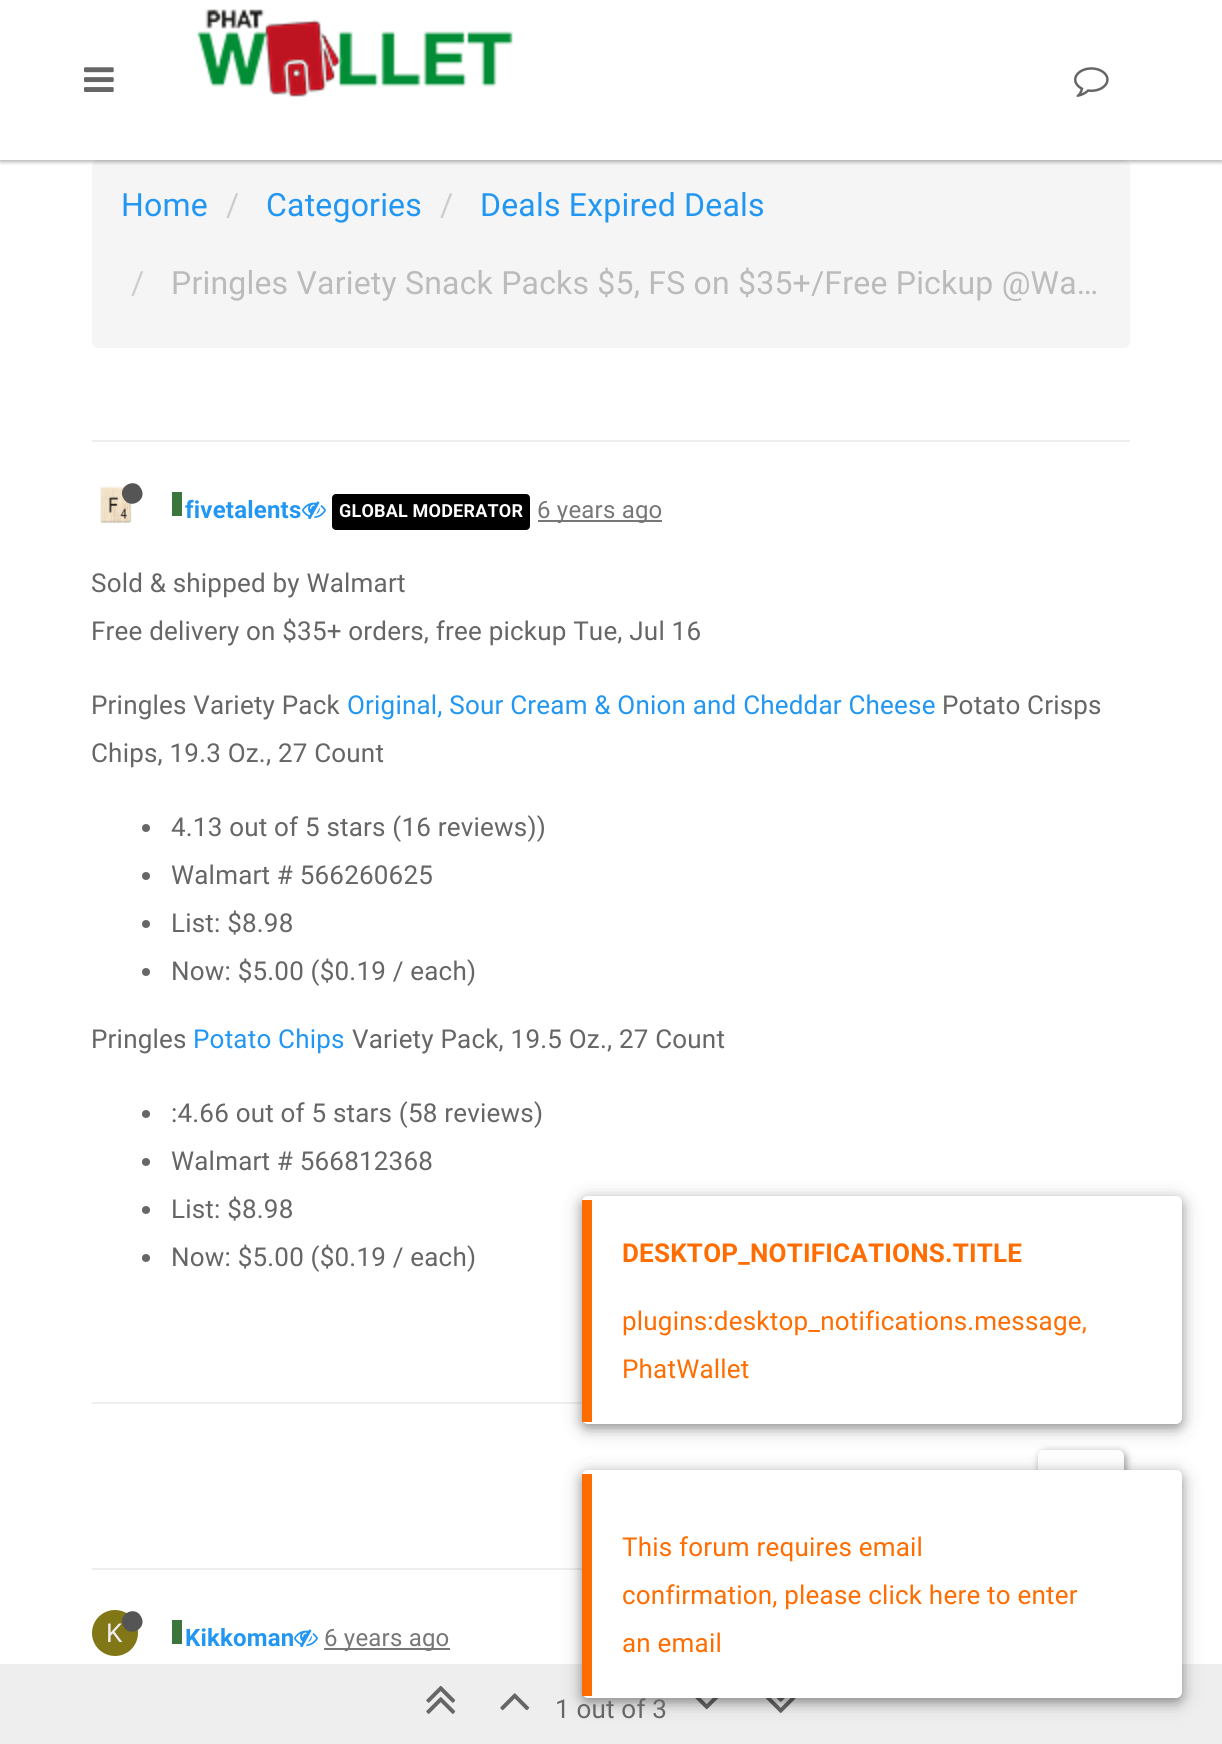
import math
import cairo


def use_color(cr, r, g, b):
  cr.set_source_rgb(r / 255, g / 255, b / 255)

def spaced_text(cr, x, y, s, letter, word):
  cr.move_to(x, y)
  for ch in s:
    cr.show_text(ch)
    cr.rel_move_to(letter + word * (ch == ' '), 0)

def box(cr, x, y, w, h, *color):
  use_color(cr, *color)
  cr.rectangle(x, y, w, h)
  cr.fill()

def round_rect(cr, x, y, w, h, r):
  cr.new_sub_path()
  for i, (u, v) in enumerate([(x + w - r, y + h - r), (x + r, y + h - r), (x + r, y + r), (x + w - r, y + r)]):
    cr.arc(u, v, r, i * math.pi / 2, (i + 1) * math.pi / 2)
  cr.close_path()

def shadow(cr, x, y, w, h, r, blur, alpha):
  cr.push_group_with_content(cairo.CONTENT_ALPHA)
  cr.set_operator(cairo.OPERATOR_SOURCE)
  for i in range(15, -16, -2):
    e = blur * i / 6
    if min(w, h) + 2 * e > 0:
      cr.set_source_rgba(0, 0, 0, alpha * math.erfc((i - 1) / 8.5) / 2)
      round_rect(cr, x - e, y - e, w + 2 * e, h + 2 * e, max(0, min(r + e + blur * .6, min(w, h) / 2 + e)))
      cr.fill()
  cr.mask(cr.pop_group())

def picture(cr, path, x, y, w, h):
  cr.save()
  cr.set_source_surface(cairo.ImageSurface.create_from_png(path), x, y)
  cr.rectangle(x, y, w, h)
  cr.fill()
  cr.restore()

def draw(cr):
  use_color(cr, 255, 255, 255)
  cr.paint()
  use_color(cr, 245, 245, 245)
  round_rect(cr, 92, 160, 1038, 188, 6)
  cr.fill()
  cr.save()
  cr.rectangle(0, 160, 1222, 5)
  cr.clip()
  use_color(cr, 0, 0, 0)
  shadow(cr, 0, 2, 1222, 160, 0, 2, 0.3)
  cr.restore()
  picture(cr, "img_01.png", 84, 67, 30, 25)
  picture(cr, "img_02.png", 197, 9, 316, 88)
  picture(cr, "img_03.png", 1074, 67, 35, 30)
  box(cr, 92, 440, 1038, 2, 238, 238, 238)
  picture(cr, "img_04.png", 100, 486, 32, 38)
  use_color(cr, 85, 85, 85)
  cr.new_path()
  cr.move_to(141, 488.5)
  cr.curve_to(148, 500, 130, 510.5, 123.5, 498.5)
  cr.curve_to(116.5, 487, 134.5, 476.5, 141, 488.5)
  cr.close_path()
  cr.fill()
  box(cr, 172, 492, 10, 24, 60, 118, 61)
  picture(cr, "img_05.png", 302, 501, 24, 19)
  use_color(cr, 0, 0, 0)
  round_rect(cr, 332, 494, 198, 36, 4)
  cr.fill()
  box(cr, 538, 520, 124, 2, 119, 119, 119)
  use_color(cr, 102, 102, 102)
  cr.arc(146, 828, 4, 0, 2 * math.pi)
  cr.fill()
  cr.arc(146, 876, 4, 0, 2 * math.pi)
  cr.fill()
  cr.arc(146, 924, 4, 0, 2 * math.pi)
  cr.fill()
  cr.arc(146, 972, 4, 0, 2 * math.pi)
  cr.fill()
  cr.arc(146, 1114, 4, 0, 2 * math.pi)
  cr.fill()
  cr.arc(146, 1162, 4, 0, 2 * math.pi)
  cr.fill()
  cr.arc(146, 1210, 4, 0, 2 * math.pi)
  cr.fill()
  cr.arc(146, 1258, 4, 0, 2 * math.pi)
  cr.fill()
  box(cr, 92, 1402, 490, 2, 238, 238, 238)
  use_color(cr, 0, 0, 0)
  shadow(cr, 1040, 1452, 86, 72, 6, 4, 0.4)
  use_color(cr, 255, 255, 255)
  round_rect(cr, 1038, 1450, 86, 72, 6)
  cr.fill()
  box(cr, 92, 1568, 490, 2, 238, 238, 238)
  use_color(cr, 130, 119, 23)
  cr.arc(115, 1633, 23, 0, 2 * math.pi)
  cr.fill()
  box(cr, 172, 1620, 10, 24, 60, 118, 61)
  picture(cr, "img_05.png", 294, 1629, 24, 19)
  box(cr, 324, 1648, 126, 2, 119, 119, 119)
  box(cr, 0, 1664, 1222, 80, 238, 238, 238)
  picture(cr, "img_06.png", 426, 1685, 30, 29)
  picture(cr, "img_07.png", 500, 1693, 30, 18)
  picture(cr, "img_08.png", 695, 1698, 24, 12)
  picture(cr, "img_09.png", 766, 1698, 30, 15)
  use_color(cr, 0, 0, 0)
  shadow(cr, 582, 1200, 600, 228, 6, 10, 0.25)
  shadow(cr, 582, 1200, 600, 228, 6, 5, 0.25)
  use_color(cr, 255, 255, 255)
  round_rect(cr, 582, 1196, 600, 228, 6)
  cr.fill()
  box(cr, 582, 1200, 10, 222, 255, 109, 0)
  use_color(cr, 0, 0, 0)
  shadow(cr, 582, 1474, 600, 228, 6, 10, 0.25)
  shadow(cr, 582, 1474, 600, 228, 6, 5, 0.25)
  use_color(cr, 255, 255, 255)
  round_rect(cr, 582, 1470, 600, 228, 6)
  cr.fill()
  box(cr, 582, 1474, 10, 222, 255, 109, 0)
  cr.select_font_face("Roboto")
  cr.set_font_size(32)
  use_color(cr, 33, 150, 243)
  spaced_text(cr, 121, 216, "Home", 0.2, 0)
  use_color(cr, 204, 204, 204)
  spaced_text(cr, 226, 216, "/", 0.2, 0)
  use_color(cr, 33, 150, 243)
  spaced_text(cr, 266, 216, "Categories", 0.2, 0)
  use_color(cr, 204, 204, 204)
  spaced_text(cr, 440, 216, "/", 0.2, 0)
  use_color(cr, 33, 150, 243)
  spaced_text(cr, 480, 216, "Deals Expired Deals", 0.2, 0)
  use_color(cr, 204, 204, 204)
  spaced_text(cr, 131, 294, "/", 0.2, 0)
  use_color(cr, 187, 187, 187)
  spaced_text(cr, 171, 294, "Pringles Variety Snack Packs $5, FS on $35+/Free Pickup @Wa…", 0.2, 0)
  cr.select_font_face("Roboto", cairo.FONT_SLANT_NORMAL, cairo.FONT_WEIGHT_BOLD)
  cr.set_font_size(24)
  use_color(cr, 33, 150, 243)
  spaced_text(cr, 185, 518, "fivetalents", 0.2, 0)
  cr.set_font_size(18)
  use_color(cr, 255, 255, 255)
  spaced_text(cr, 339, 517, "GLOBAL MODERATOR", 0.2, 0)
  cr.select_font_face("Roboto")
  cr.set_font_size(24)
  use_color(cr, 119, 119, 119)
  spaced_text(cr, 537, 518, "6 years ago", 0.2, 0)
  cr.set_font_size(26)
  use_color(cr, 102, 102, 102)
  spaced_text(cr, 91, 592, "Sold & shipped by Walmart", 0.2, 0)
  spaced_text(cr, 91, 640, "Free delivery on $35+ orders, free pickup Tue, Jul 16", 0.2, 0)
  spaced_text(cr, 91, 714, "Pringles Variety Pack", 0.2, 0)
  use_color(cr, 33, 150, 243)
  spaced_text(cr, 347, 714, "Original, Sour Cream & Onion and Cheddar Cheese", 0.2, 0)
  use_color(cr, 102, 102, 102)
  spaced_text(cr, 942, 714, "Potato Crisps", 0.2, 0)
  spaced_text(cr, 91, 762, "Chips, 19.3 Oz., 27 Count", 0.2, 0)
  spaced_text(cr, 171, 836, "4.13 out of 5 stars (16 reviews))", 0.2, 0)
  spaced_text(cr, 171, 884, "Walmart # 566260625", 0.2, 0)
  spaced_text(cr, 171, 932, "List: $8.98", 0.2, 0)
  spaced_text(cr, 171, 980, "Now: $5.00 ($0.19 / each)", 0.2, 0)
  spaced_text(cr, 91, 1048, "Pringles", 0.2, 0)
  use_color(cr, 33, 150, 243)
  spaced_text(cr, 193, 1048, "Potato Chips", 0.2, 0)
  use_color(cr, 102, 102, 102)
  spaced_text(cr, 352, 1048, "Variety Pack, 19.5 Oz., 27 Count", 0.2, 0)
  spaced_text(cr, 171, 1122, ":4.66 out of 5 stars (58 reviews)", 0.2, 0)
  spaced_text(cr, 171, 1170, "Walmart # 566812368", 0.2, 0)
  spaced_text(cr, 171, 1218, "List: $8.98", 0.2, 0)
  spaced_text(cr, 171, 1266, "Now: $5.00 ($0.19 / each)", 0.2, 0)
  use_color(cr, 238, 238, 238)
  spaced_text(cr, 106, 1642, "K", 0.2, 0)
  use_color(cr, 85, 85, 85)
  cr.new_path()
  cr.move_to(141, 1616.5)
  cr.curve_to(148, 1628, 130, 1638.5, 123.5, 1626.5)
  cr.curve_to(116.5, 1615, 134.5, 1604.5, 141, 1616.5)
  cr.close_path()
  cr.fill()
  cr.select_font_face("Roboto", cairo.FONT_SLANT_NORMAL, cairo.FONT_WEIGHT_BOLD)
  cr.set_font_size(24)
  use_color(cr, 33, 150, 243)
  spaced_text(cr, 185, 1646, "Kikkoman", 0.2, 0)
  cr.select_font_face("Roboto")
  use_color(cr, 119, 119, 119)
  spaced_text(cr, 324, 1646, "6 years ago", 0.2, 0)
  cr.set_font_size(26)
  use_color(cr, 102, 102, 102)
  spaced_text(cr, 555, 1718, "1 out of 3", 0.2, 0)
  cr.select_font_face("Roboto", cairo.FONT_SLANT_NORMAL, cairo.FONT_WEIGHT_BOLD)
  use_color(cr, 255, 109, 0)
  spaced_text(cr, 622, 1262, "DESKTOP_NOTIFICATIONS.TITLE", 0.2, 0)
  cr.select_font_face("Roboto")
  spaced_text(cr, 622, 1330, "plugins:desktop_notifications.message,", 0.2, 0)
  spaced_text(cr, 622, 1378, "PhatWallet", 0.2, 0)
  spaced_text(cr, 622, 1556, "This forum requires email", 0.2, 0)
  spaced_text(cr, 622, 1604, "confirmation, please click here to enter", 0.2, 0)
  spaced_text(cr, 622, 1652, "an email", 0.2, 0)


surface = cairo.ImageSurface(cairo.FORMAT_RGB24, 1222, 1744)
cr = cairo.Context(surface)
options = cairo.FontOptions()
options.set_hint_metrics(cairo.HINT_METRICS_OFF)
options.set_hint_style(cairo.HINT_STYLE_NONE)
cr.set_font_options(options)
cr.set_miter_limit(4)
draw(cr)
surface.write_to_png("out.png")
